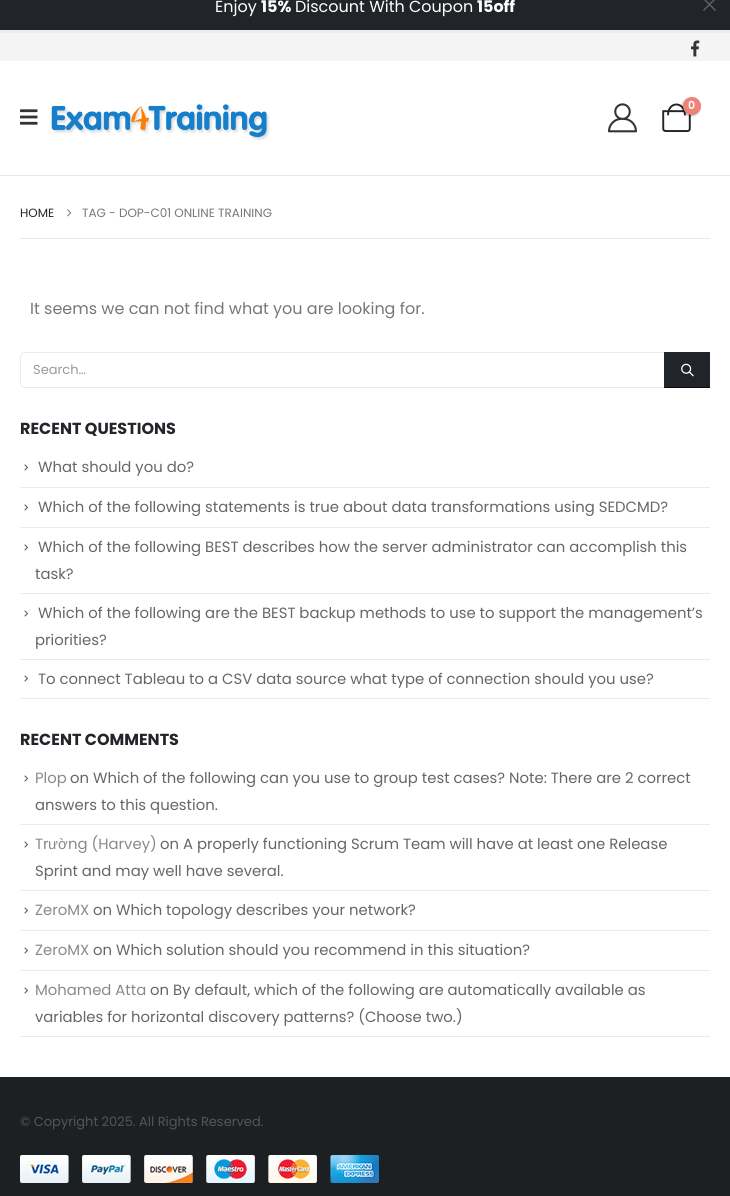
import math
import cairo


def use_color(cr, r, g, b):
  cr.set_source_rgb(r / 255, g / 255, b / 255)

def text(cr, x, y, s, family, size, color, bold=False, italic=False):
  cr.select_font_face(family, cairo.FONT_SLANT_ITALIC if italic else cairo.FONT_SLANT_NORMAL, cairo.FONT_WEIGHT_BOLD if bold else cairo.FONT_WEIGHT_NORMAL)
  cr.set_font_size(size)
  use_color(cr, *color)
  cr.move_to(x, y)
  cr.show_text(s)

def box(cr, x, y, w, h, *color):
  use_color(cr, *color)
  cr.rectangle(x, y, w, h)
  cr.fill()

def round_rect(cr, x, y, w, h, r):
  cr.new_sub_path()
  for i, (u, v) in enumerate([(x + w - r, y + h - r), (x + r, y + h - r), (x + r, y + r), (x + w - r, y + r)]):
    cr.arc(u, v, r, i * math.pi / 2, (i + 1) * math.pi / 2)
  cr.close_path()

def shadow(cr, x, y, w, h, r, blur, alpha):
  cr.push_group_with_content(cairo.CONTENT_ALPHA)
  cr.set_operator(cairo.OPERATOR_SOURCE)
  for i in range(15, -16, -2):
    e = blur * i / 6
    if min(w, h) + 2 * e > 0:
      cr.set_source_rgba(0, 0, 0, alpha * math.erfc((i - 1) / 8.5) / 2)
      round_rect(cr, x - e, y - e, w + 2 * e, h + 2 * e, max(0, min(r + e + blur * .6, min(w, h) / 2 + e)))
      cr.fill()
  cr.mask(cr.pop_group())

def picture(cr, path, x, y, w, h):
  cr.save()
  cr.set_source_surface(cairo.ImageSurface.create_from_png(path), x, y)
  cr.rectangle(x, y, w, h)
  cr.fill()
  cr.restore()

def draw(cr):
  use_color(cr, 255, 255, 255)
  cr.paint()
  box(cr, 0, 0, 730, 30, 33, 37, 41)
  use_color(cr, 97, 98, 100)
  cr.new_path()
  cr.move_to(704, -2)
  cr.line_to(716, 10)
  cr.line_to(715, 11)
  cr.line_to(703, -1)
  cr.close_path()
  cr.fill()
  cr.new_path()
  cr.move_to(715, -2)
  cr.line_to(716, -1)
  cr.line_to(704, 11)
  cr.line_to(703, 10)
  cr.close_path()
  cr.fill()
  box(cr, 0, 30, 730, 3, 237, 237, 237)
  box(cr, 0, 33, 730, 28, 244, 244, 244)
  picture(cr, "img_01.png", 691, 40, 9, 17)
  picture(cr, "img_02.png", 20, 109, 18, 16)
  picture(cr, "img_03.png", 51, 104, 219, 37)
  picture(cr, "img_04.png", 608, 103, 29, 30)
  picture(cr, "img_05.png", 662, 103, 29, 29)
  use_color(cr, 0, 0, 0)
  shadow(cr, 682, 98, 18, 18, 9, 1, 0.3)
  use_color(cr, 238, 131, 121)
  cr.arc(692, 106, 9, 0, 2 * math.pi)
  cr.fill()
  box(cr, 0, 175, 730, 1, 231, 231, 231)
  picture(cr, "img_06.png", 67, 209, 5, 8)
  box(cr, 20, 238, 690, 1, 231, 231, 231)
  cr.new_path()
  cr.move_to(25, 352.5)
  cr.line_to(664.5, 352.5)
  cr.line_to(664.5, 387.5)
  cr.line_to(25, 387.5)
  cr.curve_to(22.5, 387.5, 20.5, 385.5, 20.5, 383)
  cr.line_to(20.5, 357)
  cr.curve_to(20.5, 354.5, 22.5, 352.5, 25, 352.5)
  cr.close_path()
  use_color(cr, 235, 235, 235)
  cr.set_line_width(1)
  cr.stroke()
  box(cr, 665, 352, 45, 35, 33, 37, 41)
  box(cr, 664, 387, 46, 1, 11, 12, 13)
  box(cr, 664, 352, 1, 36, 33, 37, 41)
  picture(cr, "img_07.png", 681, 363, 13, 14)
  box(cr, 20, 698, 690, 1, 235, 235, 235)
  picture(cr, "img_08.png", 24, 464, 5, 7)
  box(cr, 20, 487, 690, 1, 235, 235, 235)
  picture(cr, "img_08.png", 24, 504, 5, 7)
  box(cr, 20, 527, 690, 1, 235, 235, 235)
  picture(cr, "img_08.png", 24, 544, 5, 7)
  box(cr, 20, 593, 690, 1, 235, 235, 235)
  picture(cr, "img_08.png", 24, 610, 5, 7)
  box(cr, 20, 659, 690, 1, 235, 235, 235)
  picture(cr, "img_08.png", 24, 675, 5, 7)
  box(cr, 20, 1036, 690, 1, 235, 235, 235)
  picture(cr, "img_08.png", 24, 775, 5, 7)
  box(cr, 20, 824, 690, 1, 235, 235, 235)
  picture(cr, "img_08.png", 24, 841, 5, 7)
  box(cr, 20, 890, 690, 1, 235, 235, 235)
  picture(cr, "img_08.png", 24, 907, 5, 7)
  box(cr, 20, 930, 690, 1, 235, 235, 235)
  picture(cr, "img_08.png", 24, 947, 5, 7)
  box(cr, 20, 970, 690, 1, 235, 235, 235)
  picture(cr, "img_08.png", 24, 987, 5, 7)
  box(cr, 0, 1077, 730, 119, 28, 32, 35)
  picture(cr, "img_09.png", 20, 1155, 359, 28)
  text(cr, 215, 12, "Enjoy", "Poppins", 16, (255, 255, 255))
  text(cr, 261, 12, "15%", "Poppins", 16, (255, 255, 255), bold=True)
  text(cr, 295, 12, "Discount With Coupon", "Poppins", 16, (255, 255, 255))
  text(cr, 477, 12, "15off", "Poppins", 16, (255, 255, 255), bold=True)
  text(cr, 688, 109, "0", "Poppins SemiBold", 11, (255, 255, 255))
  text(cr, 20, 217, "HOME", "Poppins", 12, (34, 37, 41))
  text(cr, 82, 217, "TAG - DOP-C01 ONLINE TRAINING", "Poppins", 12, (119, 119, 119))
  text(cr, 30, 314, "It seems we can not find what you are looking for.", "Poppins", 16, (119, 119, 119))
  text(cr, 33, 374, "Search…", "Poppins", 13, (153, 153, 153))
  text(cr, 20, 434, "RECENT QUESTIONS", "Poppins", 16, (34, 37, 41), bold=True)
  text(cr, 38, 472, "What should you do?", "Poppins", 14.85, (102, 102, 102))
  text(cr, 38, 512, "Which of the following statements is true about data transformations using SEDCMD?", "Poppins", 14.85, (102, 102, 102))
  text(cr, 38, 552, "Which of the following BEST describes how the server administrator can accomplish this", "Poppins", 14.85, (102, 102, 102))
  text(cr, 35, 579, "task?", "Poppins", 14.85, (102, 102, 102))
  text(cr, 38, 618, "Which of the following are the BEST backup methods to use to support the management’s", "Poppins", 14.85, (102, 102, 102))
  text(cr, 35, 645, "priorities?", "Poppins", 14.85, (102, 102, 102))
  text(cr, 38, 684, "To connect Tableau to a CSV data source what type of connection should you use?", "Poppins", 14.85, (102, 102, 102))
  text(cr, 20, 745, "RECENT COMMENTS", "Poppins", 16, (34, 37, 41), bold=True)
  text(cr, 35, 783, "Plop", "Poppins", 14.85, (137, 137, 137))
  text(cr, 70, 783, "on Which of the following can you use to group test cases? Note: There are 2 correct", "Poppins", 14.85, (102, 102, 102))
  text(cr, 35, 810, "answers to this question.", "Poppins", 14.85, (102, 102, 102))
  text(cr, 35, 849, "Tr", "Poppins", 14.85, (137, 137, 137))
  text(cr, 48, 849, "ườ", "Liberation Sans", 14.85, (137, 137, 137))
  text(cr, 68, 849, "ng (Harvey)", "Poppins", 14.85, (137, 137, 137))
  text(cr, 160, 849, "on A properly functioning Scrum Team will have at least one Release", "Poppins", 14.85, (102, 102, 102))
  text(cr, 35, 876, "Sprint and may well have several.", "Poppins", 14.85, (102, 102, 102))
  text(cr, 35, 915, "ZeroMX", "Poppins", 14.85, (137, 137, 137))
  text(cr, 93, 915, "on Which topology describes your network?", "Poppins", 14.85, (102, 102, 102))
  text(cr, 35, 955, "ZeroMX", "Poppins", 14.85, (137, 137, 137))
  text(cr, 93, 955, "on Which solution should you recommend in this situation?", "Poppins", 14.85, (102, 102, 102))
  text(cr, 35, 995, "Mohamed Atta", "Poppins", 14.85, (137, 137, 137))
  text(cr, 150, 995, "on By default, which of the following are automatically available as", "Poppins", 14.85, (102, 102, 102))
  text(cr, 35, 1022, "variables for horizontal discovery patterns? (Choose two.)", "Poppins", 14.85, (102, 102, 102))
  text(cr, 20, 1126, "© Copyright 2025. All Rights Reserved.", "Poppins", 13, (85, 85, 85))


surface = cairo.ImageSurface(cairo.FORMAT_RGB24, 730, 1196)
cr = cairo.Context(surface)
options = cairo.FontOptions()
options.set_hint_metrics(cairo.HINT_METRICS_OFF)
options.set_hint_style(cairo.HINT_STYLE_NONE)
cr.set_font_options(options)
cr.set_miter_limit(4)
draw(cr)
surface.write_to_png("out.png")
